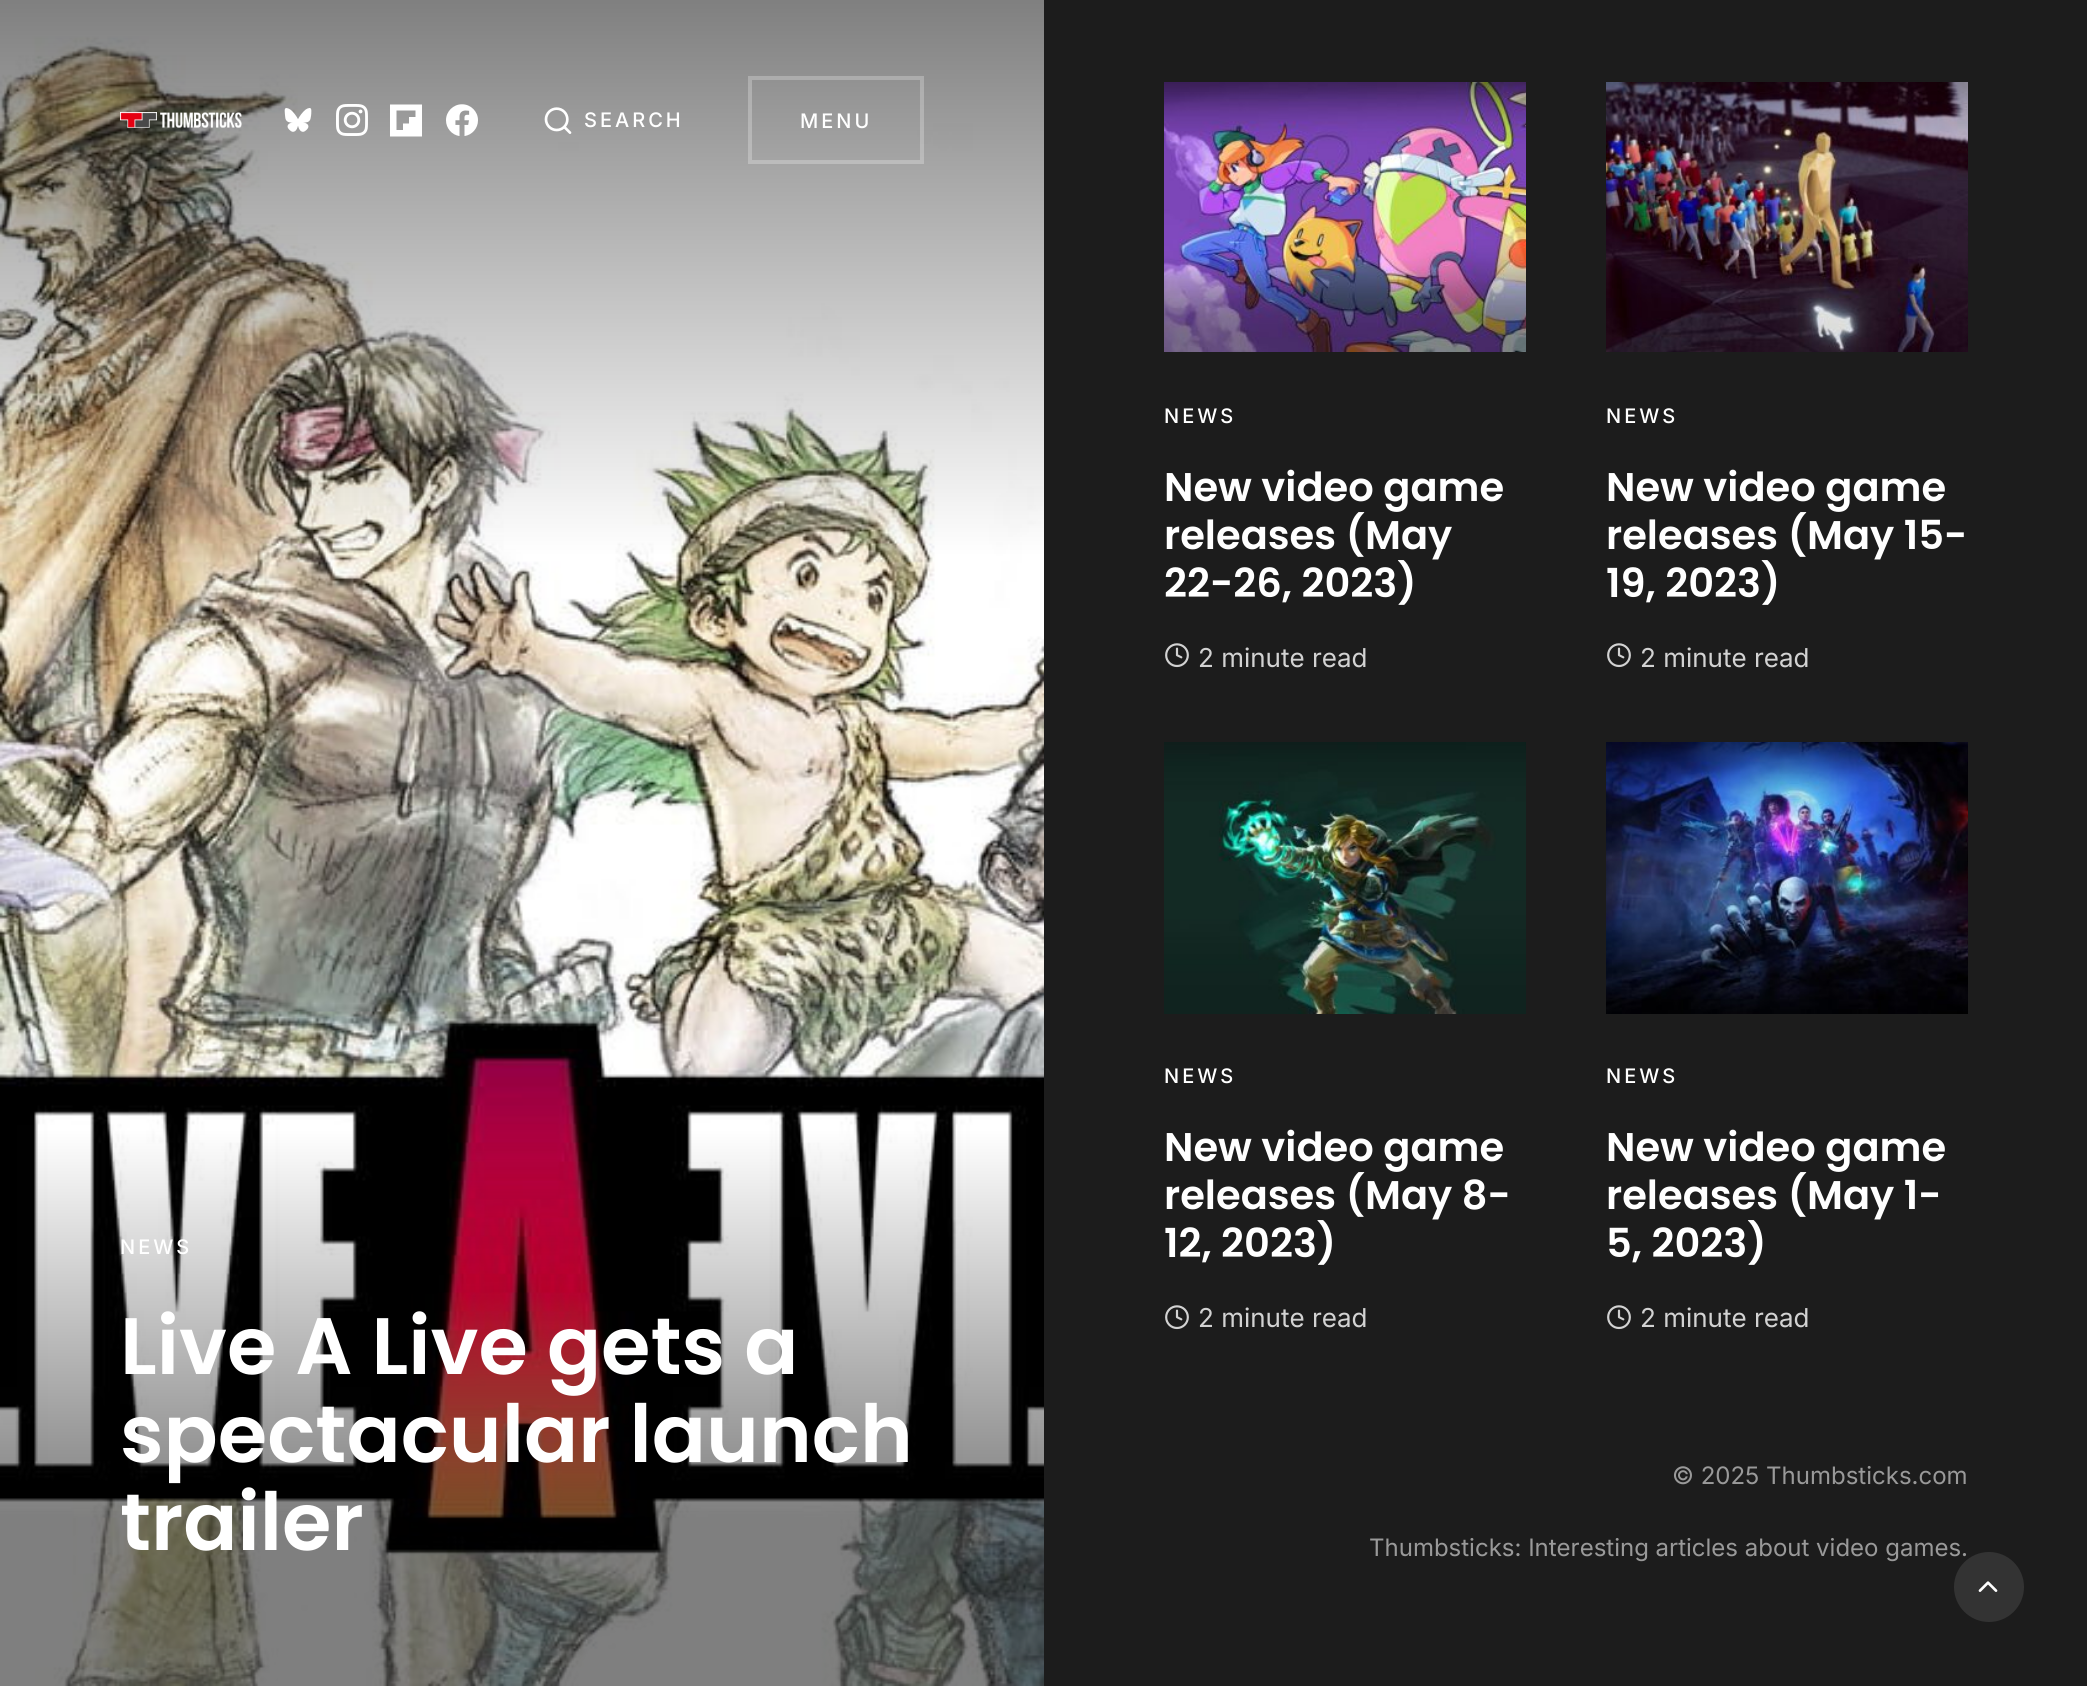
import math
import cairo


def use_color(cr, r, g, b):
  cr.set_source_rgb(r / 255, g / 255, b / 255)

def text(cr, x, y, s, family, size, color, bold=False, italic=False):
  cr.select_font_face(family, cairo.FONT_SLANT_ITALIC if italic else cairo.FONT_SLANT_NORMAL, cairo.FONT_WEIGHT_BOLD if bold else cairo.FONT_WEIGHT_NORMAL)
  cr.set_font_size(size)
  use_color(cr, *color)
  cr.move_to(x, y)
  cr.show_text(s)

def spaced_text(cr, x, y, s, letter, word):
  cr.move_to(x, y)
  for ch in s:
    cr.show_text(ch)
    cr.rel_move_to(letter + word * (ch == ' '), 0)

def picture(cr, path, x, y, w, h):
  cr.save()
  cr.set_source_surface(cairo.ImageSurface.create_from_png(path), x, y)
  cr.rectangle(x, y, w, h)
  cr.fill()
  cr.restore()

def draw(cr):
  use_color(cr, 28, 28, 28)
  cr.paint()
  picture(cr, "img_01.png", 0, 0, 1044, 1686)
  picture(cr, "img_02.png", 120, 112, 122, 16)
  picture(cr, "img_03.png", 284, 108, 28, 24)
  picture(cr, "img_04.png", 336, 104, 32, 32)
  use_color(cr, 255, 255, 255)
  cr.new_path()
  cr.move_to(390, 104.5)
  cr.line_to(390, 136.5)
  cr.line_to(422, 136.5)
  cr.line_to(422, 104.5)
  cr.close_path()
  cr.move_to(415.5, 117)
  cr.line_to(409, 117)
  cr.line_to(409, 123.5)
  cr.line_to(403, 123.5)
  cr.line_to(403, 130)
  cr.line_to(396.5, 130)
  cr.line_to(396.5, 110.5)
  cr.line_to(415.5, 110.5)
  cr.close_path()
  cr.fill()
  picture(cr, "img_05.png", 446, 104, 32, 32)
  picture(cr, "img_06.png", 544, 107, 28, 27)
  cr.rectangle(750, 78, 172, 84)
  cr.set_source_rgba(1, 1, 1, 0.25)
  cr.set_line_width(4)
  cr.stroke()
  picture(cr, "img_07.png", 1164, 82, 362, 270)
  picture(cr, "img_08.png", 1165, 643, 24, 25)
  picture(cr, "img_09.png", 1606, 82, 362, 270)
  picture(cr, "img_08.png", 1607, 643, 24, 25)
  picture(cr, "img_10.png", 1164, 742, 362, 272)
  picture(cr, "img_08.png", 1165, 1305, 24, 25)
  picture(cr, "img_11.png", 1606, 742, 362, 272)
  picture(cr, "img_08.png", 1607, 1305, 24, 25)
  cr.select_font_face("Inter Medium")
  cr.set_font_size(20)
  use_color(cr, 255, 255, 255)
  spaced_text(cr, 584, 127, "SEARCH", 3, 0)
  spaced_text(cr, 800, 128, "MENU", 3, 0)
  spaced_text(cr, 120, 1254, "NEWS", 3, 0)
  text(cr, 120, 1374, "Live A Live gets a", "Poppins SemiBold", 80, (255, 255, 255))
  text(cr, 120, 1462, "spectacular launch", "Poppins SemiBold", 80, (255, 255, 255))
  text(cr, 120, 1550, "trailer", "Poppins SemiBold", 80, (255, 255, 255))
  cr.select_font_face("Inter Medium")
  cr.set_font_size(20)
  spaced_text(cr, 1164, 423, "NEWS", 3, 0)
  text(cr, 1164, 501, "New video game", "Poppins SemiBold", 40, (255, 255, 255))
  text(cr, 1164, 549, "releases (May", "Poppins SemiBold", 40, (255, 255, 255))
  text(cr, 1164, 597, "22-26, 2023)", "Poppins SemiBold", 40, (255, 255, 255))
  text(cr, 1198, 667, "2 minute read", "Inter", 26, (210, 210, 210))
  cr.select_font_face("Inter Medium")
  cr.set_font_size(20)
  use_color(cr, 255, 255, 255)
  spaced_text(cr, 1606, 423, "NEWS", 3, 0)
  text(cr, 1606, 501, "New video game", "Poppins SemiBold", 40, (255, 255, 255))
  text(cr, 1606, 549, "releases (May 15-", "Poppins SemiBold", 40, (255, 255, 255))
  text(cr, 1606, 597, "19, 2023)", "Poppins SemiBold", 40, (255, 255, 255))
  text(cr, 1640, 667, "2 minute read", "Inter", 26, (210, 210, 210))
  cr.select_font_face("Inter Medium")
  cr.set_font_size(20)
  use_color(cr, 255, 255, 255)
  spaced_text(cr, 1164, 1083, "NEWS", 3, 0)
  text(cr, 1164, 1161, "New video game", "Poppins SemiBold", 40, (255, 255, 255))
  text(cr, 1164, 1209, "releases (May 8-", "Poppins SemiBold", 40, (255, 255, 255))
  text(cr, 1164, 1257, "12, 2023)", "Poppins SemiBold", 40, (255, 255, 255))
  text(cr, 1198, 1327, "2 minute read", "Inter", 26, (210, 210, 210))
  cr.select_font_face("Inter Medium")
  cr.set_font_size(20)
  use_color(cr, 255, 255, 255)
  spaced_text(cr, 1606, 1083, "NEWS", 3, 0)
  text(cr, 1606, 1161, "New video game", "Poppins SemiBold", 40, (255, 255, 255))
  text(cr, 1606, 1209, "releases (May 1-", "Poppins SemiBold", 40, (255, 255, 255))
  text(cr, 1606, 1257, "5, 2023)", "Poppins SemiBold", 40, (255, 255, 255))
  text(cr, 1640, 1327, "2 minute read", "Inter", 26, (210, 210, 210))
  text(cr, 1672, 1484, "© 2025 Thumbsticks.com", "Inter", 24, (153, 153, 153))
  text(cr, 1369, 1556, "Thumbsticks: Interesting articles about video games.", "Inter", 24, (153, 153, 153))
  use_color(cr, 51, 51, 51)
  cr.new_path()
  cr.arc(1989, 1587, 35, 0, 2 * math.pi)
  cr.fill()
  picture(cr, "img_12.png", 1978, 1581, 20, 11)


surface = cairo.ImageSurface(cairo.FORMAT_RGB24, 2087, 1686)
cr = cairo.Context(surface)
options = cairo.FontOptions()
options.set_hint_metrics(cairo.HINT_METRICS_OFF)
options.set_hint_style(cairo.HINT_STYLE_NONE)
cr.set_font_options(options)
cr.set_miter_limit(4)
draw(cr)
surface.write_to_png("out.png")
